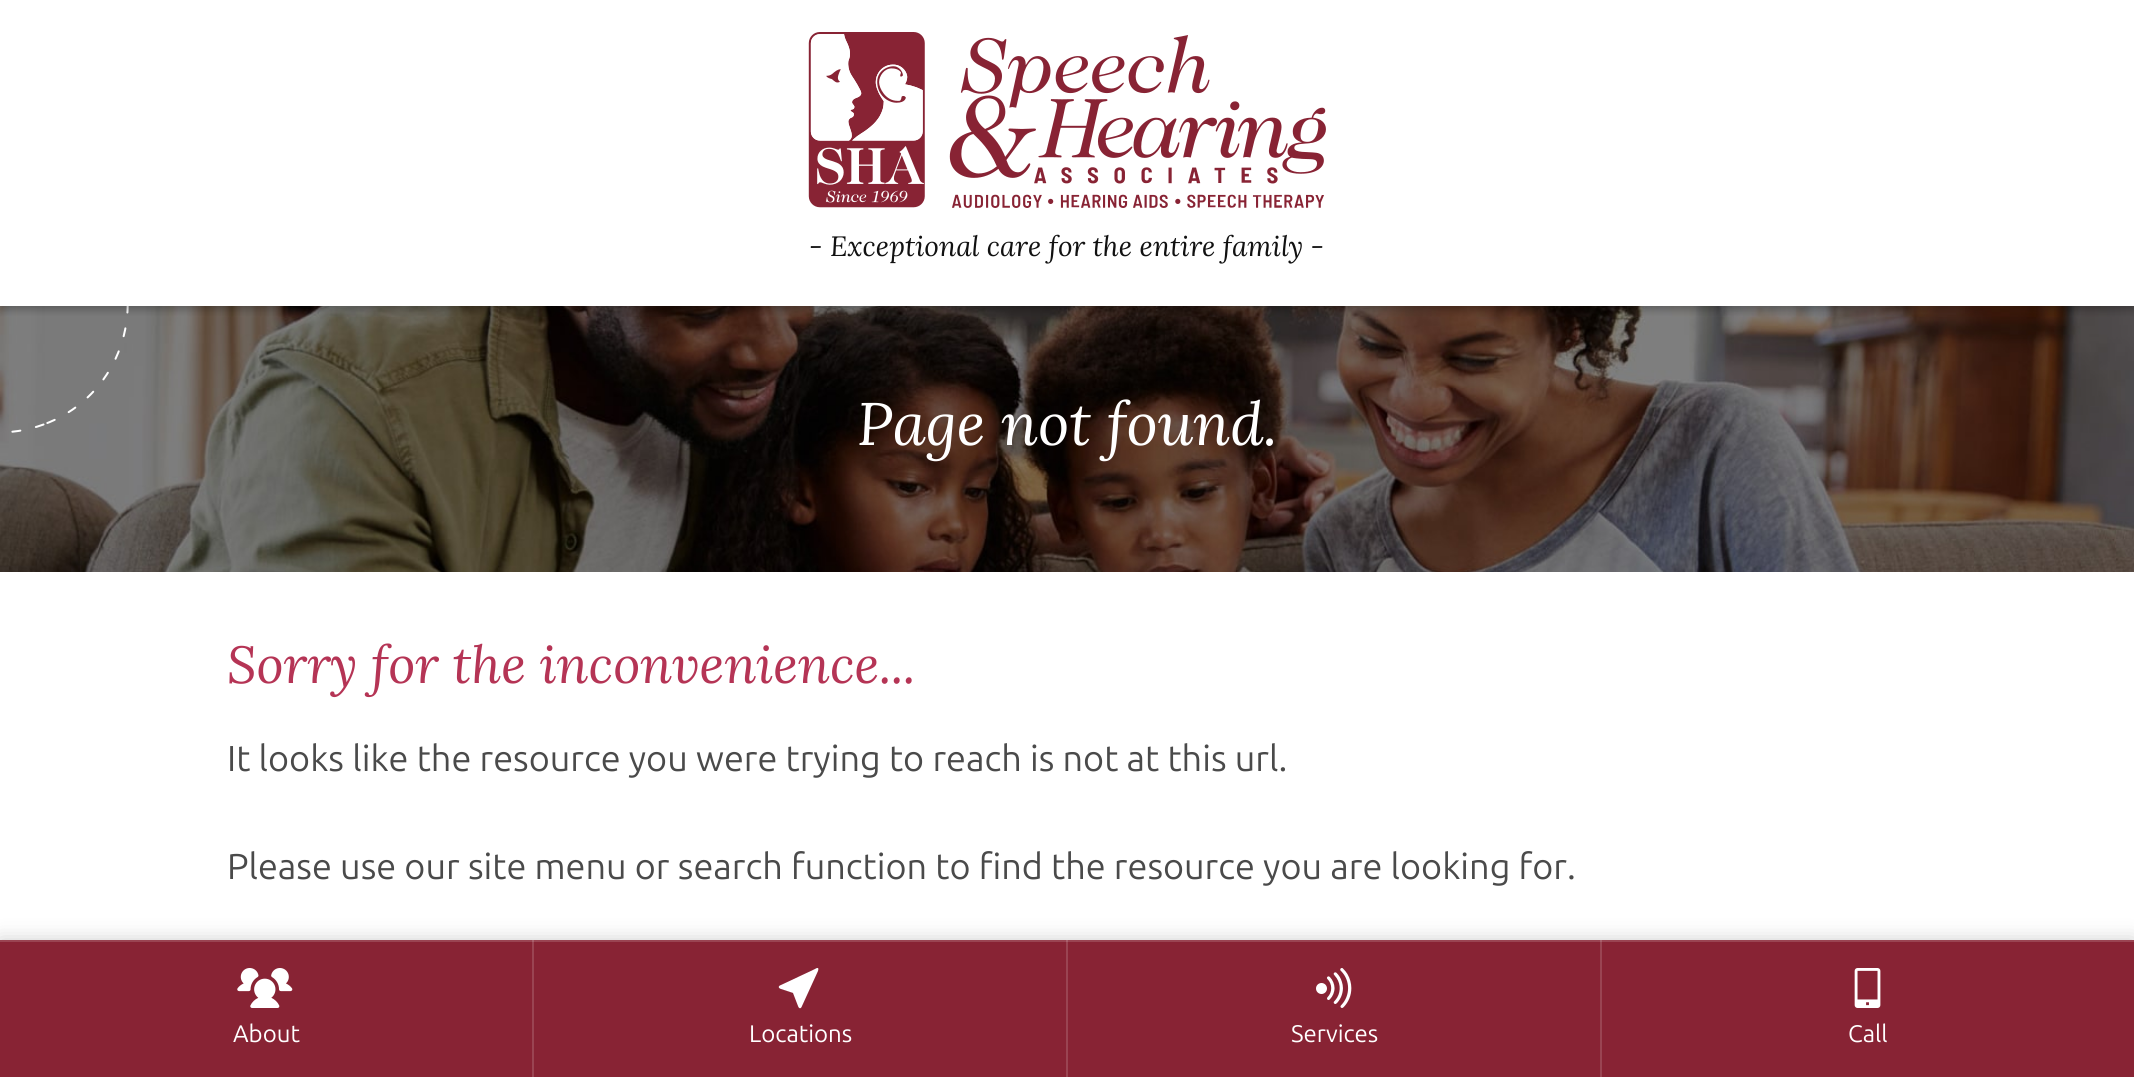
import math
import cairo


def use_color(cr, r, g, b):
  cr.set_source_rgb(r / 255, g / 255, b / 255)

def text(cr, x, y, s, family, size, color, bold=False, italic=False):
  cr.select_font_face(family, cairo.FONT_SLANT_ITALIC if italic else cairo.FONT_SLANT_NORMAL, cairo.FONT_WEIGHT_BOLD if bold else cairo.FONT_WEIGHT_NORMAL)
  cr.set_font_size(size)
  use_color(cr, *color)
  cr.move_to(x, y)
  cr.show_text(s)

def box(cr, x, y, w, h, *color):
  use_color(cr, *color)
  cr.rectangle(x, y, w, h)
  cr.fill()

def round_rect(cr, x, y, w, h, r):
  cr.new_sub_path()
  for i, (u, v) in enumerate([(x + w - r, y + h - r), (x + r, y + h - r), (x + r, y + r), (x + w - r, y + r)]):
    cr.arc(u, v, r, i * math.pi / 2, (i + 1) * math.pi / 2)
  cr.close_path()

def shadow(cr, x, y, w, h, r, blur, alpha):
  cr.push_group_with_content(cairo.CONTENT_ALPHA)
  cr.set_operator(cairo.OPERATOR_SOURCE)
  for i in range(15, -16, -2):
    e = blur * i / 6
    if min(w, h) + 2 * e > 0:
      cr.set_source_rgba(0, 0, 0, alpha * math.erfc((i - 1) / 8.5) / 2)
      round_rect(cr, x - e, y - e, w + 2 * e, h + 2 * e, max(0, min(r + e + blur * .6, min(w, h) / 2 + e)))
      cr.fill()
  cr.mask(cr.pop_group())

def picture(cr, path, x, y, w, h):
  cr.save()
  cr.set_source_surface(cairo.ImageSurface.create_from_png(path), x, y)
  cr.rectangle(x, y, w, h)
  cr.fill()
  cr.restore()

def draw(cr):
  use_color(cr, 255, 255, 255)
  cr.paint()
  picture(cr, "img_02.png", 0, 306, 2134, 266)
  cr.new_path()
  cr.move_to(43.5, 424.5)
  cr.curve_to(-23, 449, -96.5, 414.5, -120.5, 348)
  cr.curve_to(-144.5, 282, -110.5, 208.5, -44, 184)
  cr.curve_to(22.5, 160, 96, 194, 120, 260.5)
  cr.curve_to(144, 327, 110, 400.5, 43.5, 424.5)
  cr.close_path()
  use_color(cr, 255, 255, 255)
  cr.set_line_cap(cairo.LINE_CAP_ROUND)
  cr.set_dash([8, 16])
  cr.stroke()
  cr.save()
  cr.rectangle(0, 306, 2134, 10)
  cr.clip()
  use_color(cr, 0, 0, 0)
  shadow(cr, 0, 4, 2134, 306, 0, 4, 0.25)
  cr.restore()
  picture(cr, "img_01.png", 808, 32, 518, 176)
  use_color(cr, 0, 0, 0)
  shadow(cr, 0, 940, 2134, 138, 0, 10, 0.2)
  box(cr, 0, 942, 2134, 135, 136, 35, 52)
  box(cr, 0, 940, 2134, 2, 154, 68, 82)
  picture(cr, "img_03.png", 237, 968, 56, 40)
  cr.set_source_rgba(1, 1, 1, 0.15)
  cr.rectangle(532, 940, 2, 137)
  cr.fill()
  use_color(cr, 255, 255, 255)
  cr.new_path()
  cr.move_to(798, 1006)
  cr.curve_to(799, 1009, 801, 1009, 802, 1006)
  cr.line_to(818, 971)
  cr.curve_to(819, 968, 818, 967, 815, 969)
  cr.line_to(781, 985)
  cr.curve_to(778, 986, 778, 988, 781, 989)
  cr.line_to(793, 993)
  cr.close_path()
  cr.fill()
  cr.set_source_rgba(1, 1, 1, 0.15)
  cr.rectangle(1066, 940, 2, 137)
  cr.fill()
  picture(cr, "img_04.png", 1316, 968, 36, 40)
  cr.rectangle(1600, 940, 2, 137)
  cr.fill()
  picture(cr, "img_05.png", 1854, 968, 27, 40)
  text(cr, 809, 256, "- Exceptional care for the entire family -", "Lora", 28, (17, 17, 17), italic=True)
  text(cr, 857, 445, "Page not found.", "Lora", 60, (255, 255, 255), italic=True)
  text(cr, 227, 683, "Sorry for the inconvenience...", "Lora", 52, (181, 52, 85), italic=True)
  text(cr, 227, 771, "It looks like the resource you were trying to reach is not at this url.", "Ubuntu", 36, (74, 74, 74))
  text(cr, 227, 879, "Please use our site menu or search function to find the resource you are looking for.", "Ubuntu", 36, (74, 74, 74))
  text(cr, 233, 1042, "About", "Ubuntu", 24, (255, 255, 255))
  text(cr, 749, 1042, "Locations", "Ubuntu", 24, (255, 255, 255))
  text(cr, 1291, 1042, "Services", "Ubuntu", 24, (255, 255, 255))
  text(cr, 1848, 1042, "Call", "Ubuntu", 24, (255, 255, 255))


surface = cairo.ImageSurface(cairo.FORMAT_RGB24, 2134, 1077)
cr = cairo.Context(surface)
options = cairo.FontOptions()
options.set_hint_metrics(cairo.HINT_METRICS_OFF)
options.set_hint_style(cairo.HINT_STYLE_NONE)
cr.set_font_options(options)
cr.set_miter_limit(4)
draw(cr)
surface.write_to_png("out.png")
